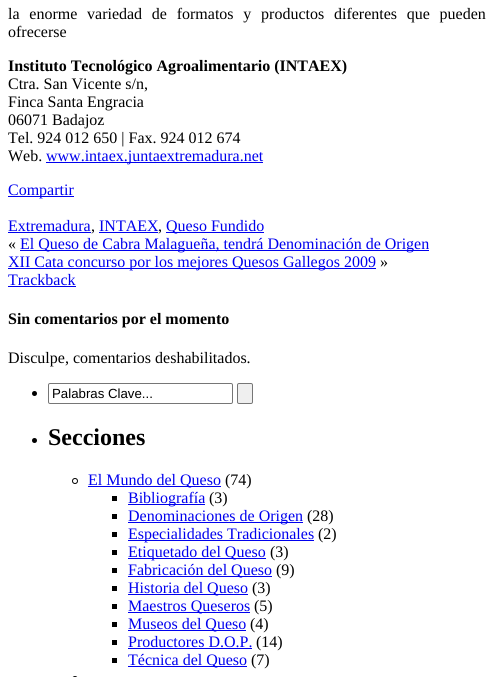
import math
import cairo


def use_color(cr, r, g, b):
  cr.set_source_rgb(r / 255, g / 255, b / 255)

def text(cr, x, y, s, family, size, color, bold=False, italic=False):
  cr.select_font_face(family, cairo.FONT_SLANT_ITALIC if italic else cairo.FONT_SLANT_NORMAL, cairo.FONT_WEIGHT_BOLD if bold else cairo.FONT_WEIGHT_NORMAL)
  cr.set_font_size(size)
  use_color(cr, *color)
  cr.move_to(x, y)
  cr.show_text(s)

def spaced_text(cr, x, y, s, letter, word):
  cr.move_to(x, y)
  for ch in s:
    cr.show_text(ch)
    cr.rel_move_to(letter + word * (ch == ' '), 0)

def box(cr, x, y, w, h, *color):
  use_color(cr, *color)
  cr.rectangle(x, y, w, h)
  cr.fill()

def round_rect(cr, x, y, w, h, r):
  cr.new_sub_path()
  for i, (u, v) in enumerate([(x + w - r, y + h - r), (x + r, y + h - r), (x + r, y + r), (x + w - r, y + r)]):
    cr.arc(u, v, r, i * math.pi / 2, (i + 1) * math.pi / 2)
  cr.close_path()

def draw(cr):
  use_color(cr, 255, 255, 255)
  cr.paint()
  box(cr, 46, 162, 217, 1, 0, 0, 238)
  box(cr, 8, 196, 66, 1, 0, 0, 238)
  box(cr, 8, 232, 83, 1, 0, 0, 238)
  box(cr, 99, 232, 59, 1, 0, 0, 238)
  box(cr, 166, 232, 98, 1, 0, 0, 238)
  box(cr, 20, 250, 409, 1, 0, 0, 238)
  box(cr, 8, 268, 368, 1, 0, 0, 238)
  box(cr, 8, 286, 68, 1, 0, 0, 238)
  use_color(cr, 0, 0, 0)
  cr.arc(34.5, 393.5, 2.5, 0, 2 * math.pi)
  cr.fill()
  round_rect(cr, 48.5, 383.5, 184, 20, 1.5)
  use_color(cr, 118, 118, 118)
  cr.set_line_width(1)
  cr.stroke()
  use_color(cr, 239, 239, 239)
  round_rect(cr, 237.5, 383.5, 15, 20, 1.5)
  cr.fill_preserve()
  use_color(cr, 118, 118, 118)
  cr.stroke()
  use_color(cr, 0, 0, 0)
  cr.arc(34.5, 440.5, 2.5, 0, 2 * math.pi)
  cr.fill()
  cr.arc(75, 481, 2.5, 0, 2 * math.pi)
  cr.stroke()
  box(cr, 88, 486, 133, 1, 0, 0, 238)
  box(cr, 112, 496, 5, 5, 0, 0, 0)
  box(cr, 128, 504, 77, 1, 0, 0, 238)
  box(cr, 112, 514, 5, 5, 0, 0, 0)
  box(cr, 128, 522, 175, 1, 0, 0, 238)
  box(cr, 112, 532, 5, 5, 0, 0, 0)
  box(cr, 128, 540, 186, 1, 0, 0, 238)
  box(cr, 112, 550, 5, 5, 0, 0, 0)
  box(cr, 128, 558, 138, 1, 0, 0, 238)
  box(cr, 112, 568, 5, 5, 0, 0, 0)
  box(cr, 128, 576, 144, 1, 0, 0, 238)
  box(cr, 112, 586, 5, 5, 0, 0, 0)
  box(cr, 128, 594, 120, 1, 0, 0, 238)
  box(cr, 112, 604, 5, 5, 0, 0, 0)
  box(cr, 128, 612, 122, 1, 0, 0, 238)
  box(cr, 112, 622, 5, 5, 0, 0, 0)
  box(cr, 128, 630, 118, 1, 0, 0, 238)
  box(cr, 112, 640, 5, 5, 0, 0, 0)
  box(cr, 128, 648, 124, 1, 0, 0, 238)
  box(cr, 112, 658, 5, 5, 0, 0, 0)
  box(cr, 128, 666, 119, 1, 0, 0, 238)
  round_rect(cr, 72.5, 676.5, 5, 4, 2.5)
  use_color(cr, 0, 0, 0)
  cr.stroke()
  cr.select_font_face("Liberation Serif")
  cr.set_font_size(16)
  spaced_text(cr, 8, 19, "la enorme variedad de formatos y productos diferentes que pueden", 0, 5.75)
  text(cr, 8, 37, "ofrecerse", "Liberation Serif", 16, (0, 0, 0))
  text(cr, 8, 71, "Instituto Tecnológico Agroalimentario (INTAEX)", "Liberation Serif", 16, (0, 0, 0), bold=True)
  text(cr, 8, 89, "Ctra. San Vicente s/n,", "Liberation Serif", 16, (0, 0, 0))
  text(cr, 8, 107, "Finca Santa Engracia", "Liberation Serif", 16, (0, 0, 0))
  text(cr, 8, 125, "06071 Badajoz", "Liberation Serif", 16, (0, 0, 0))
  text(cr, 8, 143, "Tel. 924 012 650 | Fax. 924 012 674", "Liberation Serif", 16, (0, 0, 0))
  text(cr, 8, 161, "Web.", "Liberation Serif", 16, (0, 0, 0))
  text(cr, 46, 161, "www.intaex.juntaextremadura.net", "Liberation Serif", 16, (0, 0, 238))
  text(cr, 8, 195, "Compartir", "Liberation Serif", 16, (0, 0, 238))
  text(cr, 8, 231, "Extremadura", "Liberation Serif", 16, (0, 0, 238))
  text(cr, 99, 231, "INTAEX", "Liberation Serif", 16, (0, 0, 238))
  text(cr, 166, 231, "Queso Fundido", "Liberation Serif", 16, (0, 0, 238))
  text(cr, 91, 231, ",", "Liberation Serif", 16, (0, 0, 0))
  text(cr, 158, 231, ",", "Liberation Serif", 16, (0, 0, 0))
  text(cr, 8, 249, "«", "Liberation Serif", 16, (0, 0, 0))
  text(cr, 20, 249, "El Queso de Cabra Malagueña, tendrá Denominación de Origen", "Liberation Serif", 16, (0, 0, 238))
  text(cr, 8, 267, "XII Cata concurso por los mejores Quesos Gallegos 2009", "Liberation Serif", 16, (0, 0, 238))
  text(cr, 380, 267, "»", "Liberation Serif", 16, (0, 0, 0))
  text(cr, 8, 285, "Trackback", "Liberation Serif", 16, (0, 0, 238))
  text(cr, 8, 324, "Sin comentarios por el momento", "Liberation Serif", 16, (0, 0, 0), bold=True)
  text(cr, 8, 363, "Disculpe, comentarios deshabilitados.", "Liberation Serif", 16, (0, 0, 0))
  text(cr, 52, 398, "Palabras Clave...", "Liberation Sans", 13.25, (0, 0, 0))
  text(cr, 48, 445, "Secciones", "Liberation Serif", 24, (0, 0, 0), bold=True)
  text(cr, 88, 485, "El Mundo del Queso", "Liberation Serif", 16, (0, 0, 238))
  text(cr, 225, 485, "(74)", "Liberation Serif", 16, (0, 0, 0))
  text(cr, 128, 503, "Bibliografía", "Liberation Serif", 16, (0, 0, 238))
  text(cr, 209, 503, "(3)", "Liberation Serif", 16, (0, 0, 0))
  text(cr, 128, 521, "Denominaciones de Origen", "Liberation Serif", 16, (0, 0, 238))
  text(cr, 307, 521, "(28)", "Liberation Serif", 16, (0, 0, 0))
  text(cr, 128, 539, "Especialidades Tradicionales", "Liberation Serif", 16, (0, 0, 238))
  text(cr, 318, 539, "(2)", "Liberation Serif", 16, (0, 0, 0))
  text(cr, 128, 557, "Etiquetado del Queso", "Liberation Serif", 16, (0, 0, 238))
  text(cr, 270, 557, "(3)", "Liberation Serif", 16, (0, 0, 0))
  text(cr, 128, 575, "Fabricación del Queso", "Liberation Serif", 16, (0, 0, 238))
  text(cr, 276, 575, "(9)", "Liberation Serif", 16, (0, 0, 0))
  text(cr, 128, 593, "Historia del Queso", "Liberation Serif", 16, (0, 0, 238))
  text(cr, 252, 593, "(3)", "Liberation Serif", 16, (0, 0, 0))
  text(cr, 128, 611, "Maestros Queseros", "Liberation Serif", 16, (0, 0, 238))
  text(cr, 254, 611, "(5)", "Liberation Serif", 16, (0, 0, 0))
  text(cr, 128, 629, "Museos del Queso", "Liberation Serif", 16, (0, 0, 238))
  text(cr, 250, 629, "(4)", "Liberation Serif", 16, (0, 0, 0))
  text(cr, 128, 647, "Productores D.O.P.", "Liberation Serif", 16, (0, 0, 238))
  text(cr, 256, 647, "(14)", "Liberation Serif", 16, (0, 0, 0))
  text(cr, 128, 665, "Técnica del Queso", "Liberation Serif", 16, (0, 0, 238))
  text(cr, 251, 665, "(7)", "Liberation Serif", 16, (0, 0, 0))


surface = cairo.ImageSurface(cairo.FORMAT_RGB24, 493, 677)
cr = cairo.Context(surface)
options = cairo.FontOptions()
options.set_hint_metrics(cairo.HINT_METRICS_OFF)
options.set_hint_style(cairo.HINT_STYLE_NONE)
cr.set_font_options(options)
cr.set_miter_limit(4)
draw(cr)
surface.write_to_png("out.png")
